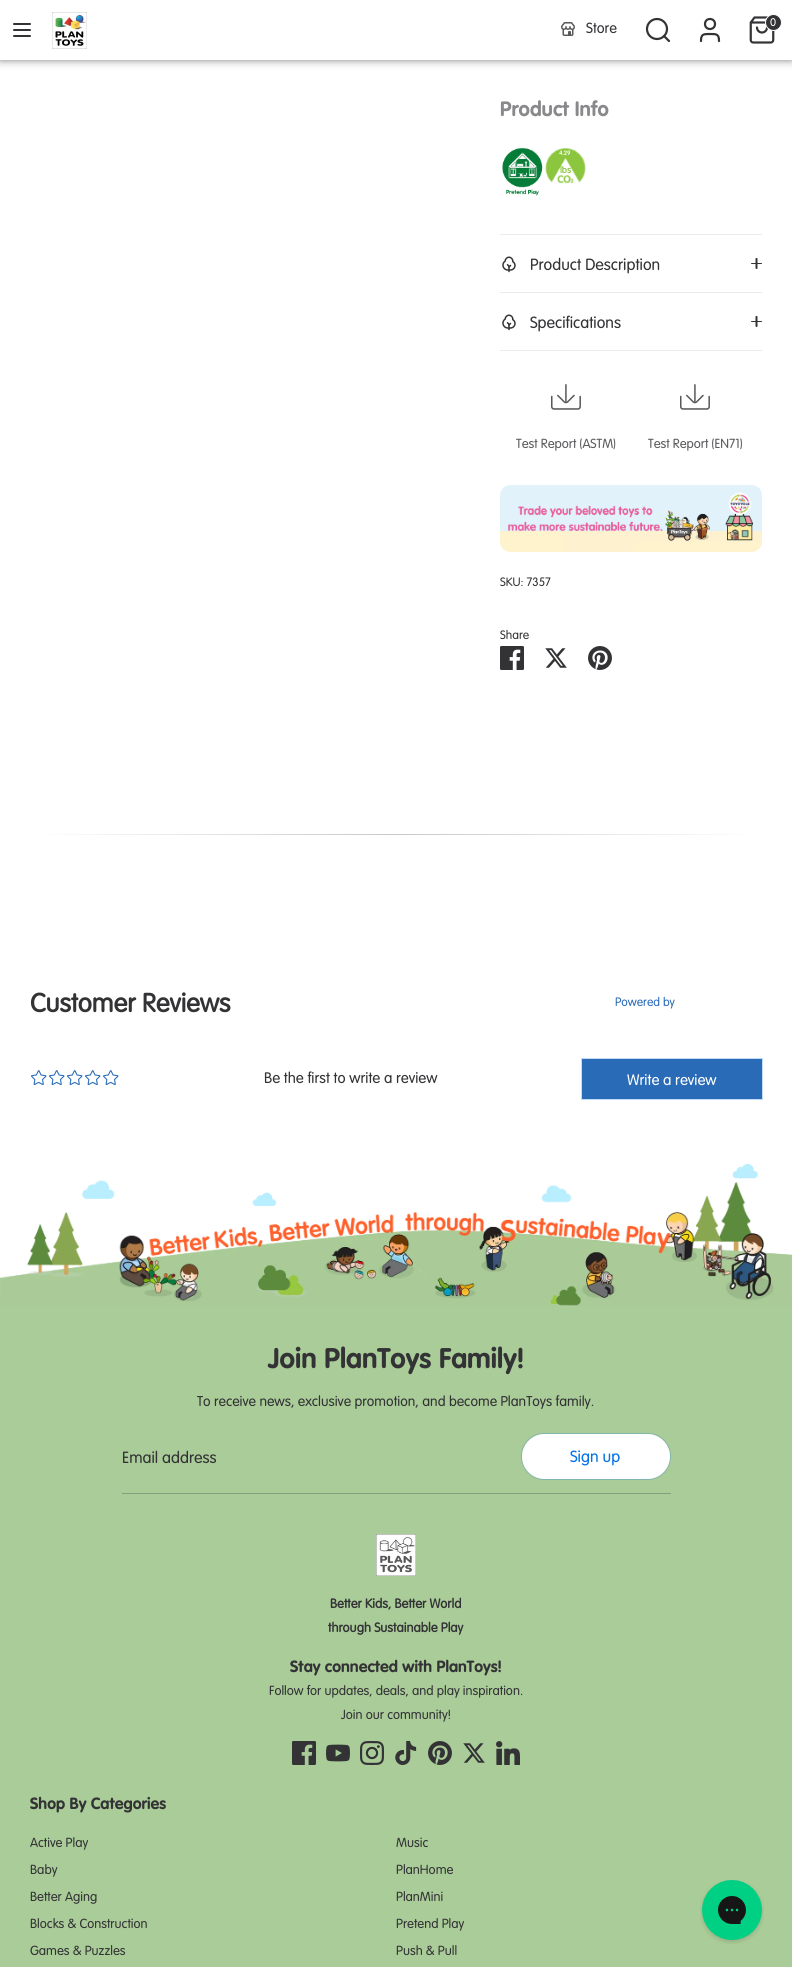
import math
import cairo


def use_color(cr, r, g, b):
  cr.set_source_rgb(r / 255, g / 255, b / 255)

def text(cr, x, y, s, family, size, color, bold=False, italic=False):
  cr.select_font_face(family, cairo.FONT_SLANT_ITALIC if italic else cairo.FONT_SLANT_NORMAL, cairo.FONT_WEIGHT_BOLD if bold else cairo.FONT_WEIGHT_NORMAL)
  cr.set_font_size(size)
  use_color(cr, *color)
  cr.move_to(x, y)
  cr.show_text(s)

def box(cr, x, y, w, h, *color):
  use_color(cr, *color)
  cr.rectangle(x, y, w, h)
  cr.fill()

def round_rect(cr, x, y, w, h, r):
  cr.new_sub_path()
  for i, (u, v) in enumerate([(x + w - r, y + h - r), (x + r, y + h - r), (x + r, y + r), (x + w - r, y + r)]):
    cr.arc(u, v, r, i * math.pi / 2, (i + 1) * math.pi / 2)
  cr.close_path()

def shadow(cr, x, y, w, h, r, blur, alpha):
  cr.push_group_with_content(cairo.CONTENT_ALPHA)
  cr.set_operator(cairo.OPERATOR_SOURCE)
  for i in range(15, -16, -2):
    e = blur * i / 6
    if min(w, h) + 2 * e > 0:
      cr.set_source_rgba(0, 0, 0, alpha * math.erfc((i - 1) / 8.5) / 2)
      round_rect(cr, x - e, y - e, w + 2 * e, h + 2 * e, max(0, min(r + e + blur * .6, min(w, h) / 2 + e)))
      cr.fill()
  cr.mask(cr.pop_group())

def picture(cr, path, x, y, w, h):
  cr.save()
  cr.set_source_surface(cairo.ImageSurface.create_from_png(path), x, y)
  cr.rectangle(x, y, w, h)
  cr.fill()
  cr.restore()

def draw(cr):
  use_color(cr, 255, 255, 255)
  cr.paint()
  use_color(cr, 0, 0, 0)
  shadow(cr, 0, -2, 792, 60, 0, 5, 0.75)
  box(cr, 0, 0, 792, 60, 255, 255, 255)
  cr.new_path()
  cr.move_to(14, 30)
  cr.line_to(30, 30)
  cr.move_to(14, 24)
  cr.line_to(30, 24)
  cr.move_to(14, 36)
  cr.line_to(30, 36)
  use_color(cr, 51, 51, 54)
  cr.set_line_cap(cairo.LINE_CAP_ROUND)
  cr.set_line_join(cairo.LINE_JOIN_ROUND)
  cr.stroke()
  picture(cr, "img_01.png", 52, 12, 35, 37)
  cr.arc(657, 29, 10, 0, 2 * math.pi)
  cr.set_line_width(2.2)
  cr.set_line_cap(cairo.LINE_CAP_BUTT)
  cr.set_line_join(cairo.LINE_JOIN_MITER)
  cr.stroke()
  cr.new_path()
  cr.move_to(669, 41)
  cr.line_to(664, 36)
  cr.move_to(719, 41)
  cr.curve_to(719, 34, 716.5, 34, 710, 34)
  cr.curve_to(703.5, 34, 701, 34, 701, 41)
  cr.set_line_cap(cairo.LINE_CAP_ROUND)
  cr.set_line_join(cairo.LINE_JOIN_ROUND)
  cr.stroke()
  picture(cr, "img_02.png", 561, 22, 14, 14)
  cr.arc(710, 24, 5, 0, 2 * math.pi)
  cr.set_line_cap(cairo.LINE_CAP_BUTT)
  cr.set_line_join(cairo.LINE_JOIN_MITER)
  cr.stroke()
  picture(cr, "img_03.png", 749, 16, 26, 28)
  cr.arc(773.5, 22.5, 8, 0, 2 * math.pi)
  cr.fill_preserve()
  use_color(cr, 255, 255, 255)
  cr.set_line_width(1)
  cr.stroke()
  picture(cr, "img_04.png", 502, 147, 41, 49)
  picture(cr, "img_05.png", 545, 148, 41, 36)
  box(cr, 500, 234, 262, 1, 235, 235, 235)
  box(cr, 500, 292, 262, 1, 235, 235, 235)
  picture(cr, "img_06.png", 502, 256, 14, 17)
  use_color(cr, 51, 51, 54)
  cr.new_path()
  cr.move_to(755.5, 268)
  cr.line_to(755.5, 258.5)
  cr.curve_to(756, 258, 757, 257.5, 757.5, 258.5)
  cr.line_to(757.5, 268.5)
  cr.curve_to(757, 269.5, 755.5, 269, 755.5, 268)
  cr.close_path()
  cr.fill()
  round_rect(cr, 751, 263, 11, 1, 0.5)
  cr.fill()
  box(cr, 500, 350, 262, 1, 235, 235, 235)
  picture(cr, "img_06.png", 502, 314, 14, 17)
  use_color(cr, 51, 51, 54)
  cr.new_path()
  cr.move_to(755.5, 326)
  cr.line_to(755.5, 316.5)
  cr.curve_to(756, 316, 757, 315.5, 757.5, 316.5)
  cr.line_to(757.5, 326.5)
  cr.curve_to(757, 327.5, 755.5, 327, 755.5, 326)
  cr.close_path()
  cr.fill()
  round_rect(cr, 751, 321, 11, 1, 0.5)
  cr.fill()
  picture(cr, "img_07.png", 551, 384, 30, 26)
  picture(cr, "img_07.png", 680, 384, 30, 26)
  picture(cr, "img_08.png", 500, 485, 262, 67)
  picture(cr, "img_09.png", 500, 646, 24, 24)
  picture(cr, "img_10.png", 545, 648, 22, 20)
  picture(cr, "img_11.png", 588, 646, 24, 24)
  gradient = cairo.LinearGradient(30, 835, 762, 835)
  gradient.add_color_stop_rgba(0, 1, 1, 1, 1)
  gradient.add_color_stop_rgba(0.5, 0.784, 0.784, 0.784, 1)
  gradient.add_color_stop_rgba(1, 1, 1, 1, 1)
  cr.set_source(gradient)
  cr.rectangle(47, 834, 698, 1)
  cr.fill()
  cr.rectangle(581.5, 1058.5, 181, 41)
  use_color(cr, 192, 220, 249)
  cr.stroke()
  box(cr, 582, 1059, 180, 40, 42, 107, 183)
  box(cr, 0, 1301, 792, 666, 170, 204, 152)
  picture(cr, "img_12.png", 0, 1164, 792, 143)
  box(cr, 122, 1493, 549, 1, 134, 158, 123)
  round_rect(cr, 521.5, 1433.5, 149, 46, 23)
  use_color(cr, 128, 181, 171)
  cr.stroke()
  use_color(cr, 255, 255, 255)
  round_rect(cr, 522, 1434, 148, 45, 22.5)
  cr.fill()
  picture(cr, "img_13.png", 376, 1534, 40, 42)
  picture(cr, "img_14.png", 292, 1741, 24, 24)
  picture(cr, "img_15.png", 326, 1744, 24, 18)
  picture(cr, "img_16.png", 360, 1741, 24, 24)
  picture(cr, "img_17.png", 395, 1741, 22, 24)
  picture(cr, "img_18.png", 428, 1741, 24, 24)
  picture(cr, "img_19.png", 463, 1743, 22, 20)
  picture(cr, "img_20.png", 496, 1741, 24, 24)
  picture(cr, "img_21.png", 700, 1880, 64, 64)
  text(cr, 586, 33, "Store", "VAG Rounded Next", 14.5, (51, 51, 54))
  text(cr, 770, 26, "0", "VAG Rounded Next", 11, (255, 255, 255))
  text(cr, 500, 116, "Product Info", "VAG Rounded Next", 20.5, (137, 137, 140), bold=True)
  text(cr, 559, 155, "4.29", "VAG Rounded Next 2", 6, (255, 255, 255), bold=True)
  text(cr, 560, 173, "lbs", "VAG Rounded Next 2", 9, (140, 198, 63), bold=True)
  text(cr, 530, 270, "Product Description", "VAG Rounded Next", 16, (51, 51, 54))
  text(cr, 530, 328, "Specifications", "VAG Rounded Next", 16, (51, 51, 54))
  text(cr, 516, 448, "Test Report (ASTM)", "VAG Rounded Next", 13, (91, 91, 94))
  text(cr, 648, 448, "Test Report (EN71)", "VAG Rounded Next", 13, (91, 91, 94))
  text(cr, 500, 586, "SKU: 7357", "VAG Rounded Next", 12, (51, 51, 54))
  text(cr, 500, 639, "Share", "VAG Rounded Next", 12, (51, 51, 54))
  text(cr, 30, 1012, "Customer Reviews", "VAG Rounded Next 2", 26, (51, 51, 54), bold=True)
  text(cr, 615, 1006, "Powered by", "VAG Rounded Next", 12, (42, 107, 183))
  text(cr, 30, 1086, "¤", "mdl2", 17, (42, 107, 183))
  text(cr, 48, 1086, "¤", "mdl2", 17, (42, 107, 183))
  text(cr, 66, 1086, "¤", "mdl2", 17, (42, 107, 183))
  text(cr, 84, 1086, "¤", "mdl2", 17, (42, 107, 183))
  text(cr, 102, 1086, "¤", "mdl2", 17, (42, 107, 183))
  text(cr, 264, 1083, "Be the first to write a review", "VAG Rounded Next", 15, (51, 51, 54))
  text(cr, 627, 1085, "Write a review", "VAG Rounded Next", 15, (255, 255, 255))
  text(cr, 268, 1368, "Join PlanToys Family!", "VAG Rounded Next", 28, (51, 51, 54), bold=True)
  text(cr, 197, 1406, "To receive news, exclusive promotion, and become PlanToys family.", "VAG Rounded Next", 14, (51, 51, 54))
  text(cr, 122, 1463, "Email address", "VAG Rounded Next", 16, (51, 51, 54))
  text(cr, 570, 1462, "Sign up", "VAG Rounded Next", 16, (1, 113, 229))
  text(cr, 330, 1608, "Better Kids, Better World", "VAG Rounded Next 2", 13, (51, 51, 54), bold=True)
  text(cr, 328, 1632, "through Sustainable Play", "VAG Rounded Next 2", 13, (51, 51, 54), bold=True)
  text(cr, 290, 1672, "Stay connected with PlanToys!", "VAG Rounded Next", 16, (51, 51, 54), bold=True)
  text(cr, 269, 1695, "Follow for updates, deals, and play inspiration.", "VAG Rounded Next", 13, (51, 51, 54))
  text(cr, 341, 1719, "Join our community!", "VAG Rounded Next", 13, (51, 51, 54))
  text(cr, 30, 1809, "Shop By Categories", "VAG Rounded Next", 16, (51, 51, 54), bold=True)
  text(cr, 30, 1847, "Active Play", "VAG Rounded Next", 13, (51, 51, 54))
  text(cr, 30, 1874, "Baby", "VAG Rounded Next", 13, (51, 51, 54))
  text(cr, 30, 1901, "Better Aging", "VAG Rounded Next", 13, (51, 51, 54))
  text(cr, 30, 1928, "Blocks & Construction", "VAG Rounded Next", 13, (51, 51, 54))
  text(cr, 30, 1955, "Games & Puzzles", "VAG Rounded Next", 13, (51, 51, 54))
  text(cr, 396, 1847, "Music", "VAG Rounded Next", 13, (51, 51, 54))
  text(cr, 396, 1874, "PlanHome", "VAG Rounded Next", 13, (51, 51, 54))
  text(cr, 396, 1901, "PlanMini", "VAG Rounded Next", 13, (51, 51, 54))
  text(cr, 396, 1928, "Pretend Play", "VAG Rounded Next", 13, (51, 51, 54))
  text(cr, 396, 1955, "Push & Pull", "VAG Rounded Next", 13, (51, 51, 54))


surface = cairo.ImageSurface(cairo.FORMAT_RGB24, 792, 1967)
cr = cairo.Context(surface)
options = cairo.FontOptions()
options.set_hint_metrics(cairo.HINT_METRICS_OFF)
options.set_hint_style(cairo.HINT_STYLE_NONE)
cr.set_font_options(options)
cr.set_miter_limit(4)
draw(cr)
surface.write_to_png("out.png")
